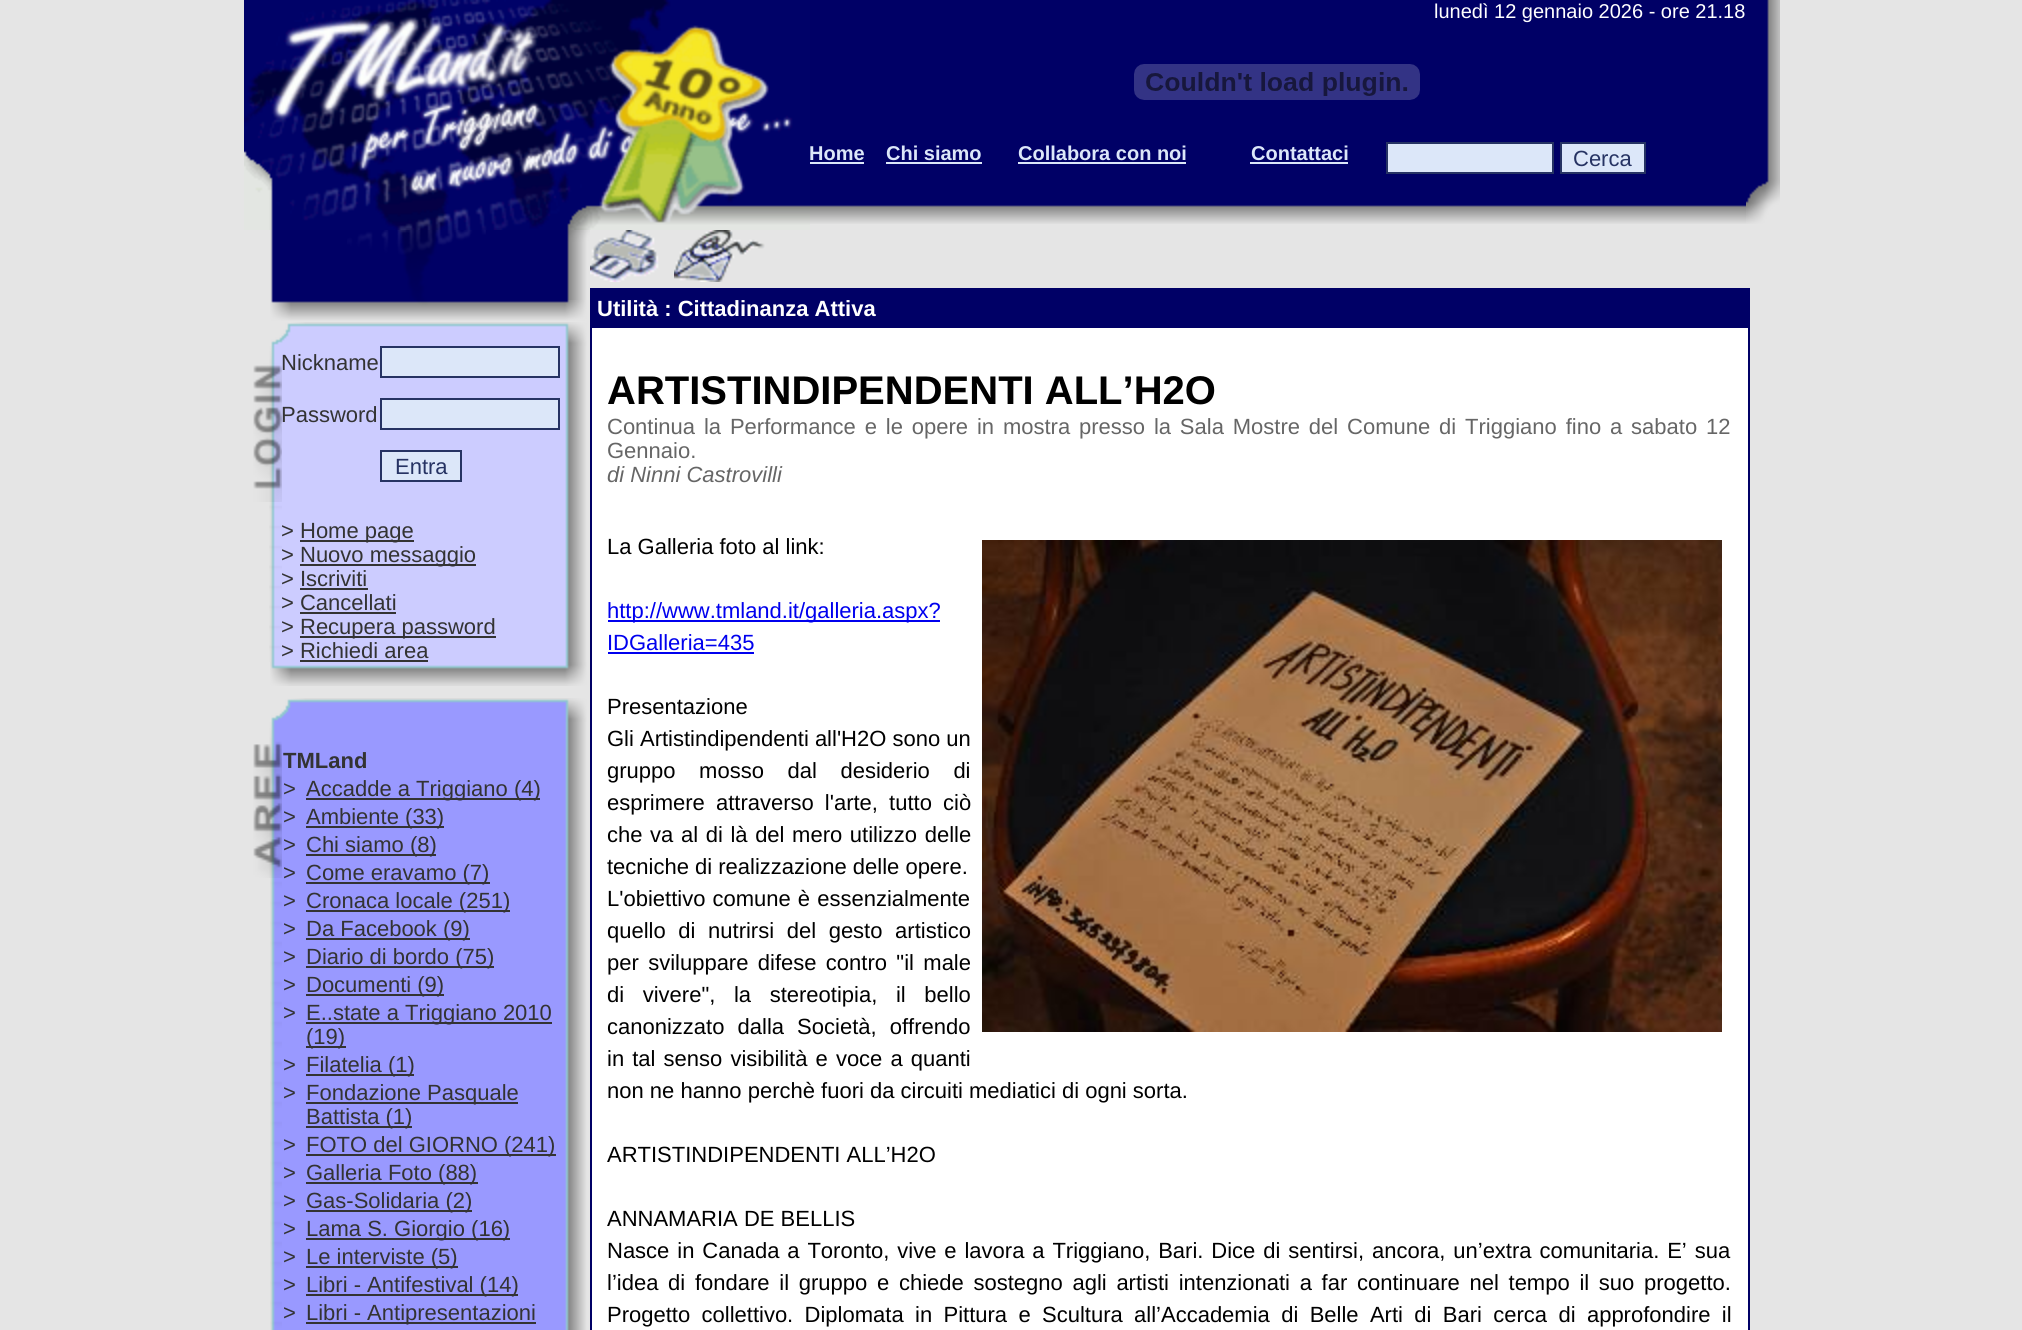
import math
import cairo


def use_color(cr, r, g, b):
  cr.set_source_rgb(r / 255, g / 255, b / 255)

def text(cr, x, y, s, family, size, color, bold=False, italic=False):
  cr.select_font_face(family, cairo.FONT_SLANT_ITALIC if italic else cairo.FONT_SLANT_NORMAL, cairo.FONT_WEIGHT_BOLD if bold else cairo.FONT_WEIGHT_NORMAL)
  cr.set_font_size(size)
  use_color(cr, *color)
  cr.move_to(x, y)
  cr.show_text(s)

def spaced_text(cr, x, y, s, letter, word):
  cr.move_to(x, y)
  for ch in s:
    cr.show_text(ch)
    cr.rel_move_to(letter + word * (ch == ' '), 0)

def box(cr, x, y, w, h, *color):
  use_color(cr, *color)
  cr.rectangle(x, y, w, h)
  cr.fill()

def picture(cr, path, x, y, w, h):
  cr.save()
  cr.set_source_surface(cairo.ImageSurface.create_from_png(path), x, y)
  cr.rectangle(x, y, w, h)
  cr.fill()
  cr.restore()

def draw(cr):
  use_color(cr, 229, 229, 229)
  cr.paint()
  picture(cr, "img_01.png", 244, 0, 566, 230)
  picture(cr, "img_02.png", 810, 0, 936, 224)
  picture(cr, "img_03.png", 1134, 64, 286, 36)
  box(cr, 810, 162, 54, 2, 220, 231, 249)
  box(cr, 886, 162, 96, 2, 220, 231, 249)
  box(cr, 1018, 162, 168, 2, 220, 231, 249)
  box(cr, 1250, 162, 98, 2, 220, 231, 249)
  cr.rectangle(1387, 143, 166, 30)
  cr.fill_preserve()
  use_color(cr, 38, 51, 99)
  cr.stroke()
  use_color(cr, 220, 231, 249)
  cr.rectangle(1561, 143, 84, 30)
  cr.fill_preserve()
  use_color(cr, 38, 51, 99)
  cr.stroke()
  picture(cr, "img_04.png", 1746, 0, 34, 224)
  picture(cr, "img_05.png", 275, 230, 292, 70)
  picture(cr, "img_06.png", 270, 230, 5, 70)
  picture(cr, "img_07.png", 347, 230, 139, 70)
  picture(cr, "img_08.png", 567, 230, 23, 70)
  picture(cr, "img_09.png", 270, 300, 318, 22)
  picture(cr, "img_10.png", 271, 322, 317, 24)
  picture(cr, "img_11.png", 269, 502, 13, 160)
  picture(cr, "img_12.png", 253, 346, 29, 156)
  box(cr, 282, 346, 280, 316, 204, 204, 255)
  use_color(cr, 220, 231, 249)
  cr.rectangle(381, 347, 178, 30)
  cr.fill_preserve()
  use_color(cr, 38, 51, 99)
  cr.stroke()
  use_color(cr, 220, 231, 249)
  cr.rectangle(381, 399, 178, 30)
  cr.fill_preserve()
  use_color(cr, 38, 51, 99)
  cr.stroke()
  use_color(cr, 220, 231, 249)
  cr.rectangle(381, 451, 80, 30)
  cr.fill_preserve()
  use_color(cr, 38, 51, 99)
  cr.stroke()
  box(cr, 300, 540, 114, 2, 51, 51, 51)
  box(cr, 300, 564, 176, 2, 51, 51, 51)
  box(cr, 300, 588, 68, 2, 51, 51, 51)
  box(cr, 300, 612, 96, 2, 51, 51, 51)
  box(cr, 300, 636, 196, 2, 51, 51, 51)
  box(cr, 300, 660, 128, 2, 51, 51, 51)
  picture(cr, "img_13.png", 562, 346, 26, 316)
  picture(cr, "img_14.png", 270, 662, 318, 24)
  picture(cr, "img_15.png", 271, 698, 317, 24)
  picture(cr, "img_16.png", 270, 878, 12, 452)
  picture(cr, "img_17.png", 253, 722, 29, 156)
  box(cr, 282, 722, 280, 608, 153, 153, 255)
  box(cr, 306, 798, 234, 2, 51, 51, 51)
  box(cr, 306, 826, 138, 2, 51, 51, 51)
  box(cr, 306, 854, 130, 2, 51, 51, 51)
  box(cr, 306, 882, 184, 2, 51, 51, 51)
  box(cr, 306, 910, 204, 2, 51, 51, 51)
  box(cr, 306, 938, 164, 2, 51, 51, 51)
  box(cr, 306, 966, 188, 2, 51, 51, 51)
  box(cr, 306, 994, 138, 2, 51, 51, 51)
  box(cr, 306, 1022, 246, 2, 51, 51, 51)
  box(cr, 306, 1046, 40, 2, 51, 51, 51)
  box(cr, 306, 1074, 108, 2, 51, 51, 51)
  box(cr, 306, 1102, 212, 2, 51, 51, 51)
  box(cr, 306, 1126, 106, 2, 51, 51, 51)
  box(cr, 306, 1154, 250, 2, 51, 51, 51)
  box(cr, 306, 1182, 172, 2, 51, 51, 51)
  box(cr, 306, 1210, 166, 2, 51, 51, 51)
  box(cr, 306, 1238, 204, 2, 51, 51, 51)
  box(cr, 306, 1266, 152, 2, 51, 51, 51)
  box(cr, 306, 1294, 212, 2, 51, 51, 51)
  box(cr, 306, 1322, 230, 2, 51, 51, 51)
  picture(cr, "img_18.png", 562, 722, 26, 608)
  picture(cr, "img_19.png", 590, 230, 69, 52)
  picture(cr, "img_20.png", 674, 230, 91, 52)
  box(cr, 590, 288, 1160, 2, 0, 0, 102)
  box(cr, 1748, 288, 2, 1042, 0, 0, 102)
  box(cr, 590, 288, 2, 1042, 0, 0, 102)
  box(cr, 592, 290, 1156, 38, 0, 0, 102)
  box(cr, 592, 328, 1156, 1002, 255, 255, 255)
  picture(cr, "img_21.png", 982, 540, 740, 492)
  box(cr, 608, 620, 332, 2, 0, 0, 238)
  box(cr, 608, 652, 146, 2, 0, 0, 238)
  text(cr, 1434, 18, "lunedì 12 gennaio 2026 - ore 21.18", "Liberation Sans", 20, (255, 255, 255))
  text(cr, 809, 160, "Home", "Liberation Sans", 20, (220, 231, 249), bold=True)
  text(cr, 886, 160, "Chi siamo", "Liberation Sans", 20, (220, 231, 249), bold=True)
  text(cr, 1018, 160, "Collabora con noi", "Liberation Sans", 20, (220, 231, 249), bold=True)
  text(cr, 1251, 160, "Contattaci", "Liberation Sans", 20, (220, 231, 249), bold=True)
  text(cr, 1573, 166, "Cerca", "Liberation Sans", 22, (38, 51, 99))
  text(cr, 281, 370, "Nickname", "Liberation Sans", 22, (51, 51, 51))
  text(cr, 281, 422, "Password", "Liberation Sans", 22, (51, 51, 51))
  text(cr, 395, 474, "Entra", "Liberation Sans", 22, (38, 51, 99))
  text(cr, 281, 538, ">", "Liberation Sans", 22, (51, 51, 51))
  text(cr, 300, 538, "Home page", "Liberation Sans", 22, (51, 51, 51))
  text(cr, 281, 562, ">", "Liberation Sans", 22, (51, 51, 51))
  text(cr, 300, 562, "Nuovo messaggio", "Liberation Sans", 22, (51, 51, 51))
  text(cr, 281, 586, "> Iscriviti", "Liberation Sans", 22, (51, 51, 51))
  text(cr, 281, 610, "> Cancellati", "Liberation Sans", 22, (51, 51, 51))
  text(cr, 281, 634, ">", "Liberation Sans", 22, (51, 51, 51))
  text(cr, 300, 634, "Recupera password", "Liberation Sans", 22, (51, 51, 51))
  text(cr, 281, 658, "> Richiedi area", "Liberation Sans", 22, (51, 51, 51))
  text(cr, 283, 768, "TMLand", "Liberation Sans", 22, (51, 51, 51), bold=True)
  text(cr, 283, 796, ">", "Liberation Sans", 22, (51, 51, 51))
  text(cr, 306, 796, "Accadde a Triggiano (4)", "Liberation Sans", 22, (51, 51, 51))
  text(cr, 283, 824, ">", "Liberation Sans", 22, (51, 51, 51))
  text(cr, 306, 824, "Ambiente (33)", "Liberation Sans", 22, (51, 51, 51))
  text(cr, 283, 852, ">", "Liberation Sans", 22, (51, 51, 51))
  text(cr, 306, 852, "Chi siamo (8)", "Liberation Sans", 22, (51, 51, 51))
  text(cr, 283, 880, ">", "Liberation Sans", 22, (51, 51, 51))
  text(cr, 306, 880, "Come eravamo (7)", "Liberation Sans", 22, (51, 51, 51))
  text(cr, 283, 908, ">", "Liberation Sans", 22, (51, 51, 51))
  text(cr, 306, 908, "Cronaca locale (251)", "Liberation Sans", 22, (51, 51, 51))
  text(cr, 283, 936, ">", "Liberation Sans", 22, (51, 51, 51))
  text(cr, 306, 936, "Da Facebook (9)", "Liberation Sans", 22, (51, 51, 51))
  text(cr, 283, 964, ">", "Liberation Sans", 22, (51, 51, 51))
  text(cr, 306, 964, "Diario di bordo (75)", "Liberation Sans", 22, (51, 51, 51))
  text(cr, 283, 992, ">", "Liberation Sans", 22, (51, 51, 51))
  text(cr, 306, 992, "Documenti (9)", "Liberation Sans", 22, (51, 51, 51))
  text(cr, 283, 1020, ">", "Liberation Sans", 22, (51, 51, 51))
  text(cr, 306, 1020, "E..state a Triggiano 2010", "Liberation Sans", 22, (51, 51, 51))
  text(cr, 306, 1044, "(19)", "Liberation Sans", 22, (51, 51, 51))
  text(cr, 283, 1072, ">", "Liberation Sans", 22, (51, 51, 51))
  text(cr, 306, 1072, "Filatelia (1)", "Liberation Sans", 22, (51, 51, 51))
  text(cr, 283, 1100, ">", "Liberation Sans", 22, (51, 51, 51))
  text(cr, 306, 1100, "Fondazione Pasquale", "Liberation Sans", 22, (51, 51, 51))
  text(cr, 306, 1124, "Battista (1)", "Liberation Sans", 22, (51, 51, 51))
  text(cr, 283, 1152, ">", "Liberation Sans", 22, (51, 51, 51))
  text(cr, 306, 1152, "FOTO del GIORNO (241)", "Liberation Sans", 22, (51, 51, 51))
  text(cr, 283, 1180, ">", "Liberation Sans", 22, (51, 51, 51))
  text(cr, 306, 1180, "Galleria Foto (88)", "Liberation Sans", 22, (51, 51, 51))
  text(cr, 283, 1208, ">", "Liberation Sans", 22, (51, 51, 51))
  text(cr, 306, 1208, "Gas-Solidaria (2)", "Liberation Sans", 22, (51, 51, 51))
  text(cr, 283, 1236, ">", "Liberation Sans", 22, (51, 51, 51))
  text(cr, 306, 1236, "Lama S. Giorgio (16)", "Liberation Sans", 22, (51, 51, 51))
  text(cr, 283, 1264, ">", "Liberation Sans", 22, (51, 51, 51))
  text(cr, 306, 1264, "Le interviste (5)", "Liberation Sans", 22, (51, 51, 51))
  text(cr, 283, 1292, ">", "Liberation Sans", 22, (51, 51, 51))
  text(cr, 306, 1292, "Libri - Antifestival (14)", "Liberation Sans", 22, (51, 51, 51))
  text(cr, 283, 1320, ">", "Liberation Sans", 22, (51, 51, 51))
  text(cr, 306, 1320, "Libri - Antipresentazioni", "Liberation Sans", 22, (51, 51, 51))
  text(cr, 597, 316, "Utilità : Cittadinanza Attiva", "Liberation Sans", 22, (255, 255, 255), bold=True)
  text(cr, 607, 404, "ARTISTINDIPENDENTI ALL’H2O", "Liberation Sans", 40, (0, 0, 0), bold=True)
  cr.select_font_face("Liberation Sans")
  cr.set_font_size(22)
  use_color(cr, 102, 102, 102)
  spaced_text(cr, 607, 434, "Continua la Performance e le opere in mostra presso la Sala Mostre del Comune di Triggiano fino a sabato 12", 0, 2.75)
  text(cr, 607, 458, "Gennaio.", "Liberation Sans", 22, (102, 102, 102))
  text(cr, 607, 482, "di Ninni Castrovilli", "Liberation Sans", 22, (102, 102, 102), italic=True)
  text(cr, 607, 554, "La Galleria foto al link:", "Liberation Sans", 22, (0, 0, 0))
  text(cr, 607, 618, "http://www.tmland.it/galleria.aspx?", "Liberation Sans", 22, (0, 0, 238))
  text(cr, 607, 650, "IDGalleria=435", "Liberation Sans", 22, (0, 0, 238))
  text(cr, 607, 714, "Presentazione", "Liberation Sans", 22, (0, 0, 0))
  text(cr, 607, 746, "Gli Artistindipendenti all'H2O sono un", "Liberation Sans", 22, (0, 0, 0))
  spaced_text(cr, 607, 778, "gruppo mosso dal desiderio di", 0, 17.5)
  spaced_text(cr, 607, 810, "esprimere attraverso l'arte, tutto ciò", 0, 5)
  spaced_text(cr, 607, 842, "che va al di là del mero utilizzo delle", 0, 1.5)
  text(cr, 607, 874, "tecniche di realizzazione delle opere.", "Liberation Sans", 22, (0, 0, 0))
  spaced_text(cr, 607, 906, "L'obiettivo comune è essenzialmente", 0, 1)
  spaced_text(cr, 607, 938, "quello di nutrirsi del gesto artistico", 0, 6.5)
  spaced_text(cr, 607, 970, "per sviluppare difese contro \"il male", 0, 3.25)
  spaced_text(cr, 607, 1002, "di vivere\", la stereotipia, il bello", 0, 12.5)
  spaced_text(cr, 607, 1034, "canonizzato dalla Società, offrendo", 0, 7)
  spaced_text(cr, 607, 1066, "in tal senso visibilità e voce a quanti", 0, 2)
  text(cr, 607, 1098, "non ne hanno perchè fuori da circuiti mediatici di ogni sorta.", "Liberation Sans", 22, (0, 0, 0))
  text(cr, 607, 1162, "ARTISTINDIPENDENTI ALL’H2O", "Liberation Sans", 22, (0, 0, 0))
  text(cr, 607, 1226, "ANNAMARIA DE BELLIS", "Liberation Sans", 22, (0, 0, 0))
  spaced_text(cr, 607, 1258, "Nasce in Canada a Toronto, vive e lavora a Triggiano, Bari. Dice di sentirsi, ancora, un’extra comunitaria. E’ sua", 0, 1.8)
  spaced_text(cr, 607, 1290, "l’idea di fondare il gruppo e chiede sostegno agli artisti intenzionati a far continuare nel tempo il suo progetto.", 0, 3.6)
  spaced_text(cr, 607, 1322, "Progetto collettivo. Diplomata in Pittura e Scultura all’Accademia di Belle Arti di Bari cerca di approfondire il", 0, 5.25)


surface = cairo.ImageSurface(cairo.FORMAT_RGB24, 2022, 1330)
cr = cairo.Context(surface)
options = cairo.FontOptions()
options.set_hint_metrics(cairo.HINT_METRICS_OFF)
options.set_hint_style(cairo.HINT_STYLE_NONE)
cr.set_font_options(options)
cr.set_miter_limit(4)
draw(cr)
surface.write_to_png("out.png")
